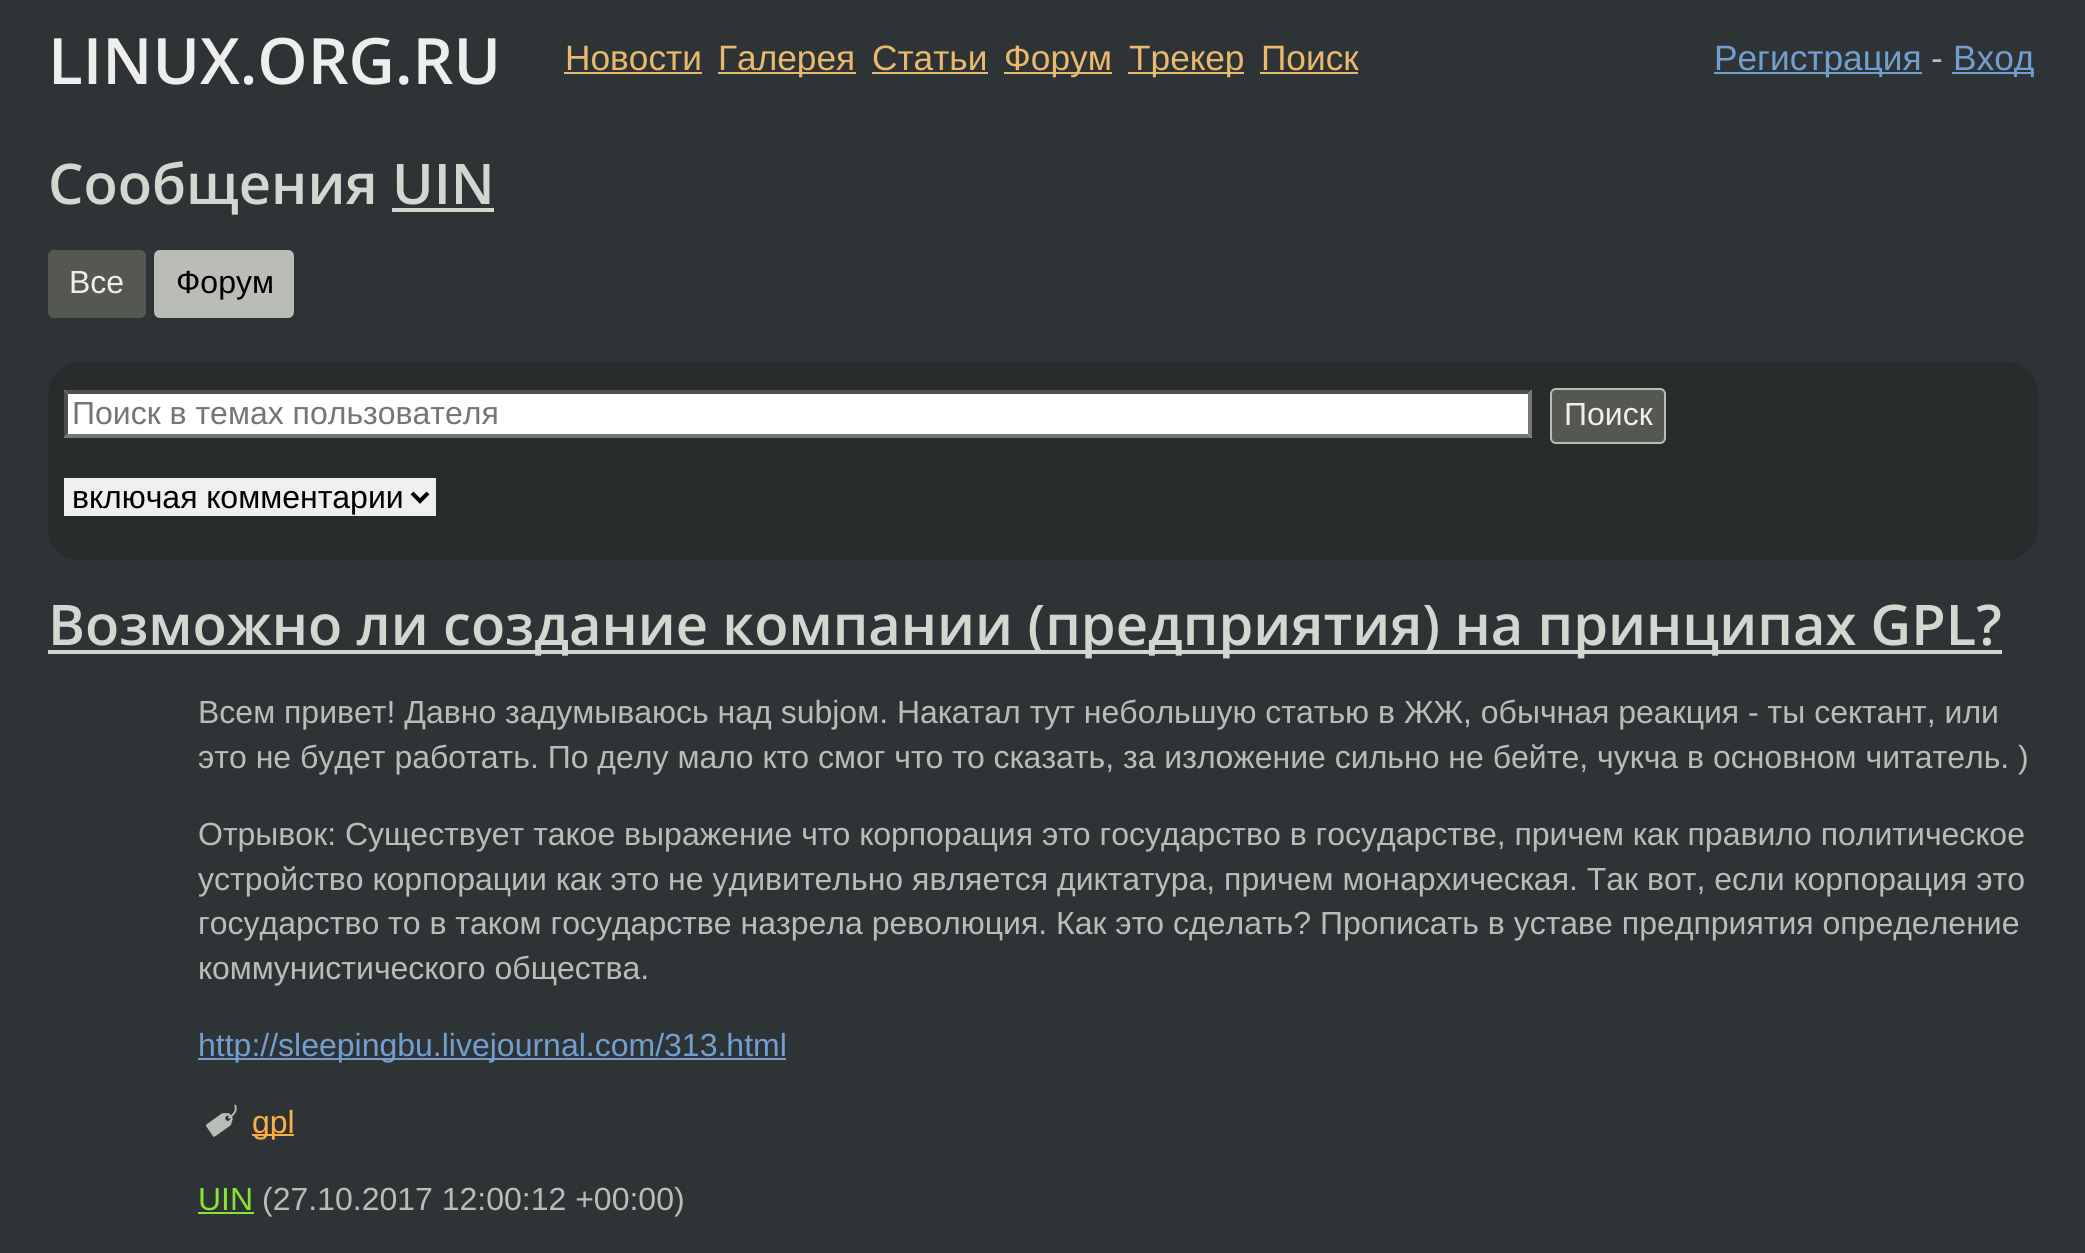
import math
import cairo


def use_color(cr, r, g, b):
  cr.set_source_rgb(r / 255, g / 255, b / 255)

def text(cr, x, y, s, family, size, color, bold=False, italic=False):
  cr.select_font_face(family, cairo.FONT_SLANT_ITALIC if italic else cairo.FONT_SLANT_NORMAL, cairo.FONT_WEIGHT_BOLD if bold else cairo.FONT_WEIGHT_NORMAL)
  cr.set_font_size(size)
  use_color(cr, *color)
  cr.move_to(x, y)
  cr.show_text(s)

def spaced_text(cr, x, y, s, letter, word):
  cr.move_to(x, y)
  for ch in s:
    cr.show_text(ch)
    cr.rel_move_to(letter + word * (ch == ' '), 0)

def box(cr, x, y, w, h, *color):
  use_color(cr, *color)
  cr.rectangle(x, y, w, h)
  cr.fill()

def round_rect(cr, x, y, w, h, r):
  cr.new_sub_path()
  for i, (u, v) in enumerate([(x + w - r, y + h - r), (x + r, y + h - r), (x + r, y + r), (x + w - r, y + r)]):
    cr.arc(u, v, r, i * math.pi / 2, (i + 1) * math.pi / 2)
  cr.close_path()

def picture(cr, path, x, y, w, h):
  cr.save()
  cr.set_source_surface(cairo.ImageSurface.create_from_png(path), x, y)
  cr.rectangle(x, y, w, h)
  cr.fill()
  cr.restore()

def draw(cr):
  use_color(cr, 46, 52, 54)
  cr.paint()
  box(cr, 564, 72, 138, 2, 233, 185, 110)
  box(cr, 718, 72, 138, 2, 233, 185, 110)
  box(cr, 872, 72, 116, 2, 233, 185, 110)
  box(cr, 1004, 72, 108, 2, 233, 185, 110)
  box(cr, 1128, 72, 116, 2, 233, 185, 110)
  box(cr, 1260, 72, 98, 2, 233, 185, 110)
  box(cr, 1714, 72, 208, 2, 114, 159, 207)
  box(cr, 1952, 72, 82, 2, 114, 159, 207)
  box(cr, 392, 208, 102, 4, 211, 215, 207)
  use_color(cr, 85, 87, 83)
  round_rect(cr, 48, 250, 98, 68, 6)
  cr.fill()
  use_color(cr, 186, 189, 182)
  round_rect(cr, 154, 250, 140, 68, 6)
  cr.fill()
  use_color(cr, 39, 44, 45)
  round_rect(cr, 48, 362, 1990, 198, 32)
  cr.fill()
  box(cr, 64, 390, 1468, 48, 255, 255, 255)
  use_color(cr, 79, 79, 79)
  cr.new_path()
  cr.move_to(64, 390)
  cr.line_to(1532, 390)
  cr.line_to(1528, 394)
  cr.line_to(68, 394)
  cr.close_path()
  cr.fill()
  use_color(cr, 118, 118, 118)
  cr.new_path()
  cr.move_to(1532, 390)
  cr.line_to(1532, 438)
  cr.line_to(1528, 434)
  cr.line_to(1528, 394)
  cr.close_path()
  cr.fill()
  cr.new_path()
  cr.move_to(1532, 438)
  cr.line_to(64, 438)
  cr.line_to(68, 434)
  cr.line_to(1528, 434)
  cr.close_path()
  cr.fill()
  use_color(cr, 79, 79, 79)
  cr.new_path()
  cr.move_to(64, 438)
  cr.line_to(64, 390)
  cr.line_to(68, 394)
  cr.line_to(68, 434)
  cr.close_path()
  cr.fill()
  use_color(cr, 85, 87, 83)
  round_rect(cr, 1551, 389, 114, 54, 5)
  cr.fill_preserve()
  use_color(cr, 186, 189, 182)
  cr.stroke()
  box(cr, 64, 478, 372, 38, 239, 239, 239)
  cr.new_path()
  cr.move_to(412, 493)
  cr.line_to(420, 501)
  cr.line_to(428, 493)
  use_color(cr, 0, 0, 0)
  cr.set_line_width(4)
  cr.stroke()
  box(cr, 48, 650, 1954, 4, 211, 215, 207)
  box(cr, 198, 1058, 588, 2, 114, 159, 207)
  picture(cr, "img_01.png", 206, 1104, 31, 33)
  box(cr, 252, 1134, 42, 2, 252, 175, 62)
  box(cr, 198, 1212, 56, 2, 138, 226, 52)
  text(cr, 48, 84, "LINUX.ORG.RU", "Open Sans SemiBold", 64, (238, 238, 236))
  text(cr, 565, 70, "Новости", "Liberation Sans", 35.25, (233, 185, 110))
  text(cr, 718, 70, "Галерея", "Liberation Sans", 35.25, (233, 185, 110))
  text(cr, 872, 70, "Статьи", "Liberation Sans", 35.25, (233, 185, 110))
  text(cr, 1004, 70, "Форум", "Liberation Sans", 35.25, (233, 185, 110))
  text(cr, 1129, 70, "Трекер", "Liberation Sans", 35.25, (233, 185, 110))
  text(cr, 1261, 70, "Поиск", "Liberation Sans", 35.25, (233, 185, 110))
  text(cr, 1714, 70, "Регистрация", "Liberation Sans", 35.25, (114, 159, 207))
  text(cr, 1931, 70, "-", "Liberation Sans", 35.25, (186, 189, 182))
  text(cr, 1953, 70, "Вход", "Liberation Sans", 35.25, (114, 159, 207))
  text(cr, 48, 204, "Сообщения UIN", "Open Sans SemiBold", 56.05, (211, 215, 207))
  text(cr, 69, 293, "Все", "Liberation Sans", 32, (238, 238, 236))
  text(cr, 176, 293, "Форум", "Liberation Sans", 32, (0, 0, 0))
  text(cr, 72, 424, "Поиск в темах пользователя", "Liberation Sans", 32, (117, 117, 117))
  text(cr, 1564, 425, "Поиск", "Liberation Sans", 32, (238, 238, 236))
  text(cr, 72, 508, "включая комментарии", "Liberation Sans", 32, (0, 0, 0))
  cr.select_font_face("Open Sans SemiBold")
  cr.set_font_size(56.05)
  use_color(cr, 211, 215, 207)
  spaced_text(cr, 48, 645, "Возможно ли создание компании (предприятия) на принципах GPL?", 0, -0.25)
  text(cr, 198, 723, "Всем привет! Давно задумываюсь над subjом. Накатал тут небольшую статью в ЖЖ, обычная реакция - ты сектант, или", "Liberation Sans", 32, (186, 189, 182))
  text(cr, 198, 768, "это не будет работать. По делу мало кто смог что то сказать, за изложение сильно не бейте, чукча в основном читатель. )", "Liberation Sans", 32, (186, 189, 182))
  text(cr, 198, 845, "Отрывок: Существует такое выражение что корпорация это государство в государстве, причем как правило политическое", "Liberation Sans", 32, (186, 189, 182))
  text(cr, 198, 890, "устройство корпорации как это не удивительно является диктатура, причем монархическая. Так вот, если корпорация это", "Liberation Sans", 32, (186, 189, 182))
  text(cr, 198, 934, "государство то в таком государстве назрела революция. Как это сделать? Прописать в уставе предприятия определение", "Liberation Sans", 32, (186, 189, 182))
  text(cr, 198, 979, "коммунистического общества.", "Liberation Sans", 32, (186, 189, 182))
  text(cr, 198, 1056, "http://sleepingbu.livejournal.com/313.html", "Liberation Sans", 32, (114, 159, 207))
  text(cr, 252, 1133, "gpl", "Liberation Sans", 32, (252, 175, 62))
  text(cr, 198, 1210, "UIN", "Liberation Sans", 32, (138, 226, 52))
  text(cr, 262, 1210, "(27.10.2017 12:00:12 +00:00)", "Liberation Sans", 32, (186, 189, 182))


surface = cairo.ImageSurface(cairo.FORMAT_RGB24, 2085, 1253)
cr = cairo.Context(surface)
options = cairo.FontOptions()
options.set_hint_metrics(cairo.HINT_METRICS_OFF)
options.set_hint_style(cairo.HINT_STYLE_NONE)
cr.set_font_options(options)
cr.set_miter_limit(4)
draw(cr)
surface.write_to_png("out.png")
